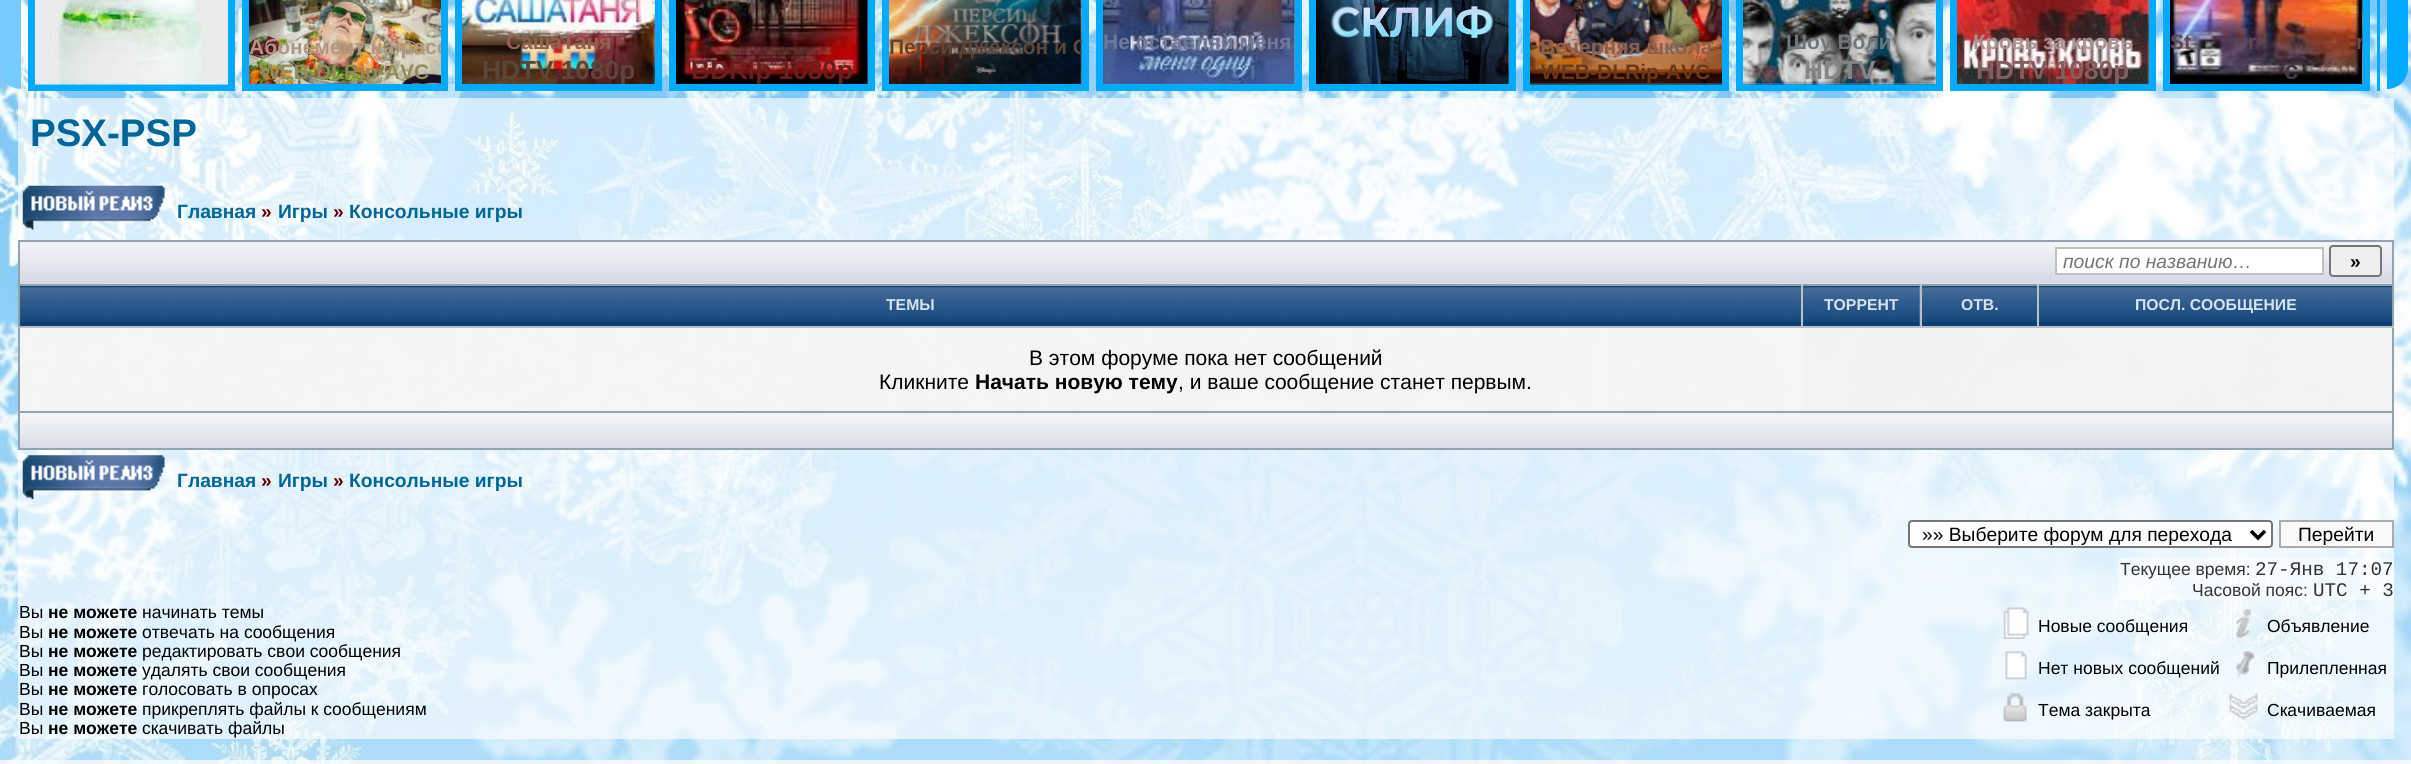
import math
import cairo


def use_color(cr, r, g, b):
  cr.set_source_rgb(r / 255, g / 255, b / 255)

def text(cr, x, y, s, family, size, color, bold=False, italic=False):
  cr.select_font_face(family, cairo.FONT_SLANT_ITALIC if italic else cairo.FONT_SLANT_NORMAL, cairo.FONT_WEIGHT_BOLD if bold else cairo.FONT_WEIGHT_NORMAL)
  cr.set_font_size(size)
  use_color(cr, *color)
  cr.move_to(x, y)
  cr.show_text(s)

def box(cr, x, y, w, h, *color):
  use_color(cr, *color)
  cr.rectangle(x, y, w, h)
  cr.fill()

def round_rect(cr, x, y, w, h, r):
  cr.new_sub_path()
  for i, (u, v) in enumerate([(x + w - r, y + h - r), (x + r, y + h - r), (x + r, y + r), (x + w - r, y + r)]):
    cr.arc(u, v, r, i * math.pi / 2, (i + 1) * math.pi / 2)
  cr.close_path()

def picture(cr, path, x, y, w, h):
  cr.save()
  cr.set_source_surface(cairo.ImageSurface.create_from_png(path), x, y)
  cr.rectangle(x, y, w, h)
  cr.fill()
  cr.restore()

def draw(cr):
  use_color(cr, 255, 255, 255)
  cr.paint()
  picture(cr, "img_01.png", 0, 0, 2411, 764)
  use_color(cr, 119, 204, 255)
  cr.new_path()
  cr.move_to(21, -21)
  cr.line_to(21, 89)
  cr.curve_to(9.5, 89, 0, 79.5, 0, 68)
  cr.line_to(0, 0)
  cr.curve_to(0, -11.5, 9.5, -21, 21, -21)
  cr.close_path()
  cr.fill()
  cr.rectangle(31.5, -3.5, 200, 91)
  use_color(cr, 0, 170, 255)
  cr.set_line_width(7)
  cr.stroke()
  picture(cr, "img_02.png", 35, 0, 193, 85)
  cr.rectangle(245.5, -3.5, 199, 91)
  cr.stroke()
  picture(cr, "img_03.png", 249, 0, 192, 84)
  cr.rectangle(458.5, -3.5, 200, 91)
  cr.stroke()
  picture(cr, "img_04.png", 462, 0, 193, 84)
  cr.rectangle(672.5, -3.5, 199, 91)
  cr.stroke()
  picture(cr, "img_05.png", 676, 0, 192, 84)
  cr.rectangle(885.5, -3.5, 200, 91)
  cr.stroke()
  picture(cr, "img_06.png", 889, 0, 193, 84)
  cr.rectangle(1099.5, -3.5, 199, 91)
  cr.stroke()
  picture(cr, "img_07.png", 1103, 0, 192, 84)
  cr.rectangle(1312.5, -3.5, 200, 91)
  cr.stroke()
  picture(cr, "img_08.png", 1316, 0, 193, 84)
  cr.rectangle(1526.5, -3.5, 199, 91)
  cr.stroke()
  picture(cr, "img_09.png", 1530, 0, 192, 85)
  cr.rectangle(1739.5, -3.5, 200, 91)
  cr.stroke()
  picture(cr, "img_10.png", 1743, 0, 193, 85)
  cr.rectangle(1953.5, -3.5, 199, 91)
  cr.stroke()
  picture(cr, "img_11.png", 1957, 0, 192, 84)
  cr.rectangle(2166.5, -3.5, 200, 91)
  cr.stroke()
  picture(cr, "img_12.png", 2170, 0, 193, 84)
  cr.save()
  cr.rectangle(28, 0, 2352, 130)
  cr.clip()
  cr.rectangle(2380.5, -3.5, 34, 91)
  cr.stroke()
  cr.restore()
  cr.new_path()
  cr.move_to(2387, -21)
  cr.curve_to(2398.5, -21, 2408, -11.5, 2408, 0)
  cr.line_to(2408, 68)
  cr.curve_to(2408, 79.5, 2398.5, 89, 2387, 89)
  cr.close_path()
  cr.fill()
  cr.set_source_rgba(1, 1, 1, 0.65)
  cr.rectangle(18, 98, 2376, 641)
  cr.fill()
  picture(cr, "img_13.png", 22, 185, 143, 45)
  picture(cr, "img_14.png", 20, 242, 2372, 42)
  box(cr, 18, 240, 2376, 2, 147, 164, 173)
  box(cr, 2392, 240, 2, 45, 147, 164, 173)
  box(cr, 18, 240, 2, 45, 147, 164, 173)
  use_color(cr, 255, 255, 255)
  cr.rectangle(2056, 248, 267, 26)
  cr.fill_preserve()
  use_color(cr, 192, 192, 192)
  cr.set_line_width(2)
  cr.stroke()
  use_color(cr, 239, 239, 239)
  round_rect(cr, 2330, 246, 51, 30, 3)
  cr.fill_preserve()
  use_color(cr, 118, 118, 118)
  cr.stroke()
  cr.set_source_rgba(1, 1, 1, 0.3)
  cr.rectangle(20, 286, 2372, 128)
  cr.fill()
  cr.set_source_rgba(0.961, 0.961, 0.961, 0.77)
  cr.rectangle(20, 328, 19, 86)
  cr.fill()
  cr.rectangle(39, 328, 1764, 86)
  cr.fill()
  cr.set_source_rgba(0.871, 0.89, 0.906, 0.5)
  cr.rectangle(1803, 286, 117, 128)
  cr.fill()
  cr.rectangle(1920, 328, 119, 86)
  cr.fill()
  cr.rectangle(2039, 328, 353, 86)
  cr.fill()
  picture(cr, "img_15.png", 20, 286, 1781, 40)
  picture(cr, "img_16.png", 1803, 286, 117, 40)
  picture(cr, "img_17.png", 1919, 286, 118, 40)
  box(cr, 18, 284, 2376, 2, 146, 163, 164)
  box(cr, 2392, 326, 2, 124, 147, 164, 173)
  box(cr, 2392, 284, 2, 43, 146, 163, 164)
  box(cr, 2037, 326, 357, 2, 183, 192, 197)
  box(cr, 2037, 284, 2, 43, 183, 192, 197)
  box(cr, 1920, 326, 119, 2, 183, 192, 197)
  box(cr, 1920, 284, 2, 43, 183, 192, 197)
  box(cr, 1801, 326, 121, 2, 183, 192, 197)
  box(cr, 1801, 284, 2, 43, 183, 192, 197)
  box(cr, 18, 448, 2376, 2, 147, 164, 173)
  box(cr, 18, 411, 2, 39, 147, 164, 173)
  box(cr, 18, 411, 2376, 2, 147, 164, 173)
  box(cr, 18, 326, 2, 87, 147, 164, 173)
  box(cr, 18, 326, 1785, 2, 183, 192, 197)
  box(cr, 18, 284, 2, 43, 146, 163, 164)
  picture(cr, "img_18.png", 2039, 286, 353, 40)
  picture(cr, "img_19.png", 20, 413, 2372, 35)
  cr.set_source_rgba(0.961, 0.961, 0.961, 0.77)
  cr.rectangle(21, 328, 2371, 83)
  cr.fill()
  picture(cr, "img_20.png", 22, 455, 143, 44)
  use_color(cr, 255, 255, 255)
  round_rect(cr, 1909, 521, 363, 26, 3)
  cr.fill_preserve()
  use_color(cr, 118, 118, 118)
  cr.stroke()
  cr.new_path()
  cr.move_to(2251, 531)
  cr.line_to(2258, 538)
  cr.line_to(2265, 531)
  use_color(cr, 0, 0, 0)
  cr.set_line_width(3.5)
  cr.stroke()
  use_color(cr, 250, 250, 250)
  cr.rectangle(2280, 521, 113, 26)
  cr.fill_preserve()
  use_color(cr, 171, 171, 171)
  cr.set_line_width(2)
  cr.stroke()
  cr.set_source_rgba(1, 1, 1, 0.5)
  cr.rectangle(2119, 558, 275, 42)
  cr.fill()
  picture(cr, "img_21.png", 2003, 607, 26, 32)
  picture(cr, "img_22.png", 2236, 609, 15, 29)
  picture(cr, "img_23.png", 2005, 651, 22, 29)
  picture(cr, "img_24.png", 2236, 651, 19, 28)
  picture(cr, "img_25.png", 2002, 693, 25, 29)
  picture(cr, "img_26.png", 2229, 693, 29, 27)
  cr.set_source_rgba(1, 1, 1, 0.7)
  cr.rectangle(0, 760, 2411, 4)
  cr.fill()
  cr.save()
  cr.rectangle(249, 0, 192, 84)
  cr.clip()
  text(cr, 249, 54, "Абонемент на расс", "Liberation Sans", 21, (175, 151, 129), bold=True)
  cr.restore()
  text(cr, 260, 79, "WEB-DLRip-AVC", "Liberation Sans", 21, (148, 138, 90), bold=True)
  text(cr, 506, 49, "СашаТаня", "Liberation Sans", 21, (147, 97, 81), bold=True)
  cr.save()
  cr.rectangle(462, 0, 193, 84)
  cr.clip()
  text(cr, 482, 79, "HDTV 1080p", "Liberation Sans", 26.25, (92, 70, 58), bold=True)
  cr.restore()
  cr.save()
  cr.rectangle(676, 0, 192, 84)
  cr.clip()
  text(cr, 691, 79, "BDRip 1080p", "Liberation Sans", 26.25, (105, 30, 29), bold=True)
  cr.restore()
  cr.save()
  cr.rectangle(889, 0, 193, 84)
  cr.clip()
  text(cr, 889, 54, "Перси Джексон и О", "Liberation Sans", 21, (92, 70, 58), bold=True)
  cr.restore()
  text(cr, 1103, 49, "Не оставляй меня", "Liberation Sans", 21, (112, 121, 153), bold=True)
  text(cr, 1249, 79, "i", "Liberation Sans", 26.25, (79, 107, 160), bold=True)
  text(cr, 1463, 79, "i", "Liberation Sans", 26.25, (15, 31, 47), bold=True)
  text(cr, 1540, 54, "Вечерняя школа", "Liberation Sans", 21, (138, 96, 76), bold=True)
  text(cr, 1541, 79, "WEB-DLRip-AVC", "Liberation Sans", 21, (107, 55, 22), bold=True)
  text(cr, 1786, 49, "Шоу Воли", "Liberation Sans", 21, (112, 119, 123), bold=True)
  text(cr, 1804, 79, "HDTV", "Liberation Sans", 26.25, (132, 133, 135), bold=True)
  text(cr, 1973, 49, "Кровь за кровь", "Liberation Sans", 21, (171, 145, 145), bold=True)
  cr.save()
  cr.rectangle(1957, 0, 192, 84)
  cr.clip()
  text(cr, 1976, 79, "HDTV 1080p", "Liberation Sans", 26.25, (130, 95, 95), bold=True)
  cr.restore()
  text(cr, 2170, 49, "St", "Liberation Sans", 21, (103, 70, 77), bold=True)
  text(cr, 2248, 49, "r", "Liberation Sans", 21, (103, 70, 77), bold=True)
  cr.save()
  cr.rectangle(2170, 0, 193, 84)
  cr.clip()
  text(cr, 2356, 49, "r", "Liberation Sans", 21, (103, 70, 77), bold=True)
  cr.restore()
  text(cr, 2284, 79, "c", "Liberation Sans", 26.25, (65, 57, 66), bold=True)
  text(cr, 30, 146, "PSX-PSP", "Liberation Sans", 38.5, (0, 102, 153), bold=True)
  text(cr, 177, 218, "Главная", "Liberation Sans", 19.25, (0, 102, 153), bold=True)
  text(cr, 261, 218, "»", "Liberation Sans", 19.25, (102, 0, 0), bold=True)
  text(cr, 278, 218, "Игры", "Liberation Sans", 19.25, (0, 102, 153), bold=True)
  text(cr, 333, 218, "»", "Liberation Sans", 19.25, (102, 0, 0), bold=True)
  text(cr, 349, 218, "Консольные игры", "Liberation Sans", 19.25, (0, 102, 153), bold=True)
  text(cr, 2063, 268, "поиск по названию…", "Liberation Sans", 19.25, (117, 117, 117), italic=True)
  text(cr, 2350, 268, "»", "Liberation Sans", 19.25, (0, 0, 0), bold=True)
  text(cr, 886, 310, "ТЕМЫ", "Liberation Sans", 15.75, (213, 228, 236), bold=True)
  text(cr, 1824, 310, "ТОРРЕНТ", "Liberation Sans", 15.75, (213, 228, 236), bold=True)
  text(cr, 1961, 310, "ОТВ.", "Liberation Sans", 15.75, (213, 228, 236), bold=True)
  text(cr, 2135, 310, "ПОСЛ. СООБЩЕНИЕ", "Liberation Sans", 15.75, (213, 228, 236), bold=True)
  text(cr, 1029, 365, "В этом форуме пока нет сообщений", "Liberation Sans", 21, (0, 0, 0))
  text(cr, 879, 389, "Кликните", "Liberation Sans", 21, (0, 0, 0))
  text(cr, 975, 389, "Начать новую тему", "Liberation Sans", 21, (0, 0, 0), bold=True)
  text(cr, 1178, 389, ", и ваше сообщение станет первым.", "Liberation Sans", 21, (0, 0, 0))
  text(cr, 177, 487, "Главная", "Liberation Sans", 19.25, (0, 102, 153), bold=True)
  text(cr, 261, 487, "»", "Liberation Sans", 19.25, (102, 0, 0), bold=True)
  text(cr, 278, 487, "Игры", "Liberation Sans", 19.25, (0, 102, 153), bold=True)
  text(cr, 333, 487, "»", "Liberation Sans", 19.25, (102, 0, 0), bold=True)
  text(cr, 349, 487, "Консольные игры", "Liberation Sans", 19.25, (0, 102, 153), bold=True)
  text(cr, 1922, 541, "»» Выберите форум для перехода", "Liberation Sans", 19.25, (0, 0, 0))
  text(cr, 2298, 541, "Перейти", "Liberation Sans", 19.25, (0, 0, 0))
  text(cr, 2120, 575, "Текущее время:", "Liberation Sans", 17.5, (51, 51, 51))
  text(cr, 2255, 575, "27-Янв 17:07", "Liberation Mono", 19.25, (51, 51, 51))
  text(cr, 2192, 596, "Часовой пояс:", "Liberation Sans", 17.5, (51, 51, 51))
  text(cr, 2313, 596, "UTC + 3", "Liberation Mono", 19.25, (51, 51, 51))
  text(cr, 19, 618, "Вы", "Liberation Sans", 17.5, (0, 0, 0))
  text(cr, 48, 618, "не можете", "Liberation Sans", 17.5, (0, 0, 0), bold=True)
  text(cr, 142, 618, "начинать темы", "Liberation Sans", 17.5, (0, 0, 0))
  text(cr, 19, 638, "Вы", "Liberation Sans", 17.5, (0, 0, 0))
  text(cr, 48, 638, "не можете", "Liberation Sans", 17.5, (0, 0, 0), bold=True)
  text(cr, 142, 638, "отвечать на сообщения", "Liberation Sans", 17.5, (0, 0, 0))
  text(cr, 19, 657, "Вы", "Liberation Sans", 17.5, (0, 0, 0))
  text(cr, 48, 657, "не можете", "Liberation Sans", 17.5, (0, 0, 0), bold=True)
  text(cr, 142, 657, "редактировать свои сообщения", "Liberation Sans", 17.5, (0, 0, 0))
  text(cr, 19, 676, "Вы", "Liberation Sans", 17.5, (0, 0, 0))
  text(cr, 48, 676, "не можете", "Liberation Sans", 17.5, (0, 0, 0), bold=True)
  text(cr, 142, 676, "удалять свои сообщения", "Liberation Sans", 17.5, (0, 0, 0))
  text(cr, 19, 695, "Вы", "Liberation Sans", 17.5, (0, 0, 0))
  text(cr, 48, 695, "не можете", "Liberation Sans", 17.5, (0, 0, 0), bold=True)
  text(cr, 142, 695, "голосовать в опросах", "Liberation Sans", 17.5, (0, 0, 0))
  text(cr, 19, 715, "Вы", "Liberation Sans", 17.5, (0, 0, 0))
  text(cr, 48, 715, "не можете", "Liberation Sans", 17.5, (0, 0, 0), bold=True)
  text(cr, 142, 715, "прикреплять файлы к сообщениям", "Liberation Sans", 17.5, (0, 0, 0))
  text(cr, 19, 734, "Вы", "Liberation Sans", 17.5, (0, 0, 0))
  text(cr, 48, 734, "не можете", "Liberation Sans", 17.5, (0, 0, 0), bold=True)
  text(cr, 142, 734, "скачивать файлы", "Liberation Sans", 17.5, (0, 0, 0))
  text(cr, 2038, 632, "Новые сообщения", "Liberation Sans", 17.5, (0, 0, 0))
  text(cr, 2267, 632, "Объявление", "Liberation Sans", 17.5, (0, 0, 0))
  text(cr, 2038, 674, "Нет новых сообщений", "Liberation Sans", 17.5, (0, 0, 0))
  text(cr, 2267, 674, "Прилепленная", "Liberation Sans", 17.5, (0, 0, 0))
  text(cr, 2038, 716, "Тема закрыта", "Liberation Sans", 17.5, (0, 0, 0))
  text(cr, 2267, 716, "Скачиваемая", "Liberation Sans", 17.5, (0, 0, 0))


surface = cairo.ImageSurface(cairo.FORMAT_RGB24, 2411, 764)
cr = cairo.Context(surface)
options = cairo.FontOptions()
options.set_hint_metrics(cairo.HINT_METRICS_OFF)
options.set_hint_style(cairo.HINT_STYLE_NONE)
cr.set_font_options(options)
cr.set_miter_limit(4)
draw(cr)
surface.write_to_png("out.png")
